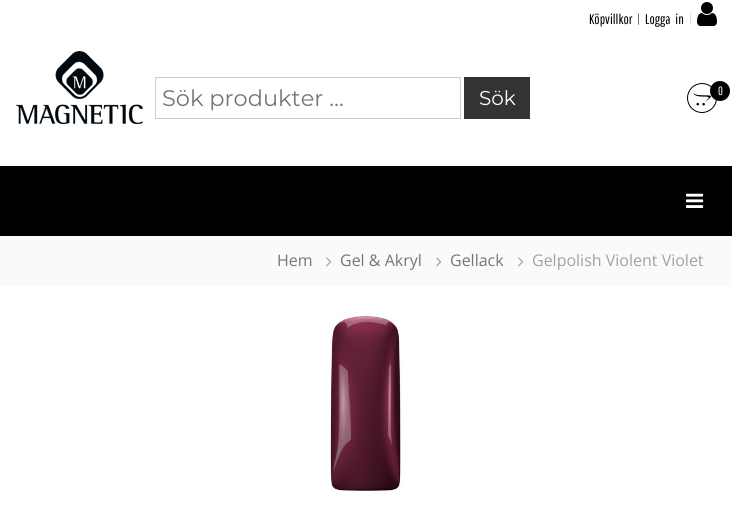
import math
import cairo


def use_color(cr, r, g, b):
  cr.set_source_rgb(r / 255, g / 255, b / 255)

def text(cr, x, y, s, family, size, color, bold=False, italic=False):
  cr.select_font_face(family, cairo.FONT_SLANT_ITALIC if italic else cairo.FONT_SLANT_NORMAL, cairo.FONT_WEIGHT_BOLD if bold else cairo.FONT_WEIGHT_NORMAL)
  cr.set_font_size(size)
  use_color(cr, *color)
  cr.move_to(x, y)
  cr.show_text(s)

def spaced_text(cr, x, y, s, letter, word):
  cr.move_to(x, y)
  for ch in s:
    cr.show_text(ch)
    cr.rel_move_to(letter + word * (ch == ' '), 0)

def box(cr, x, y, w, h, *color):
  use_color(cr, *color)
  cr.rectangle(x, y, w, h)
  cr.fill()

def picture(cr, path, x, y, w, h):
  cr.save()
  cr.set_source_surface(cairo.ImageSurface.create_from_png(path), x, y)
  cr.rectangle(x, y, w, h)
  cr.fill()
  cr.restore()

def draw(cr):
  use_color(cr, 255, 255, 255)
  cr.paint()
  picture(cr, "img_01.png", 697, 2, 20, 24)
  picture(cr, "img_02.png", 16, 51, 127, 73)
  cr.rectangle(155.5, 77.5, 305, 41)
  use_color(cr, 204, 204, 204)
  cr.set_line_width(1)
  cr.stroke()
  box(cr, 464, 77, 66, 42, 51, 51, 51)
  cr.arc(702, 98, 14.5, 0, 2 * math.pi)
  use_color(cr, 0, 0, 0)
  cr.stroke()
  picture(cr, "img_03.png", 693, 92, 18, 14)
  cr.arc(720, 91, 10, 0, 2 * math.pi)
  cr.fill()
  box(cr, 0, 166, 732, 70, 0, 0, 0)
  picture(cr, "img_04.png", 686, 193, 18, 15)
  box(cr, 0, 236, 732, 50, 250, 250, 250)
  picture(cr, "img_05.png", 326, 257, 6, 10)
  picture(cr, "img_05.png", 436, 257, 6, 10)
  picture(cr, "img_05.png", 518, 257, 6, 10)
  picture(cr, "img_06.png", 330, 316, 72, 175)
  text(cr, 589, 24, "Köpvillkor", "Pathway Gothic One", 14, (0, 0, 0))
  text(cr, 637, 24, "|", "Pathway Gothic One", 14, (51, 51, 51))
  use_color(cr, 0, 0, 0)
  spaced_text(cr, 645, 24, "Logga in", 0, 3)
  text(cr, 689, 24, "|", "Pathway Gothic One", 14, (204, 204, 204))
  text(cr, 162, 106, "Sök produkter …", "Montserrat", 22.5, (117, 117, 117))
  text(cr, 479, 105, "Sök", "Montserrat", 20, (255, 255, 255))
  text(cr, 718, 95, "0", "Pathway Gothic One", 12, (255, 255, 255))
  text(cr, 277, 266, "Hem", "Open Sans", 16, (117, 117, 117))
  text(cr, 340, 266, "Gel & Akryl", "Open Sans", 16, (117, 117, 117))
  text(cr, 450, 266, "Gellack", "Open Sans", 16, (117, 117, 117))
  text(cr, 532, 266, "Gelpolish Violent Violet", "Open Sans", 16, (161, 161, 161))


surface = cairo.ImageSurface(cairo.FORMAT_RGB24, 732, 532)
cr = cairo.Context(surface)
options = cairo.FontOptions()
options.set_hint_metrics(cairo.HINT_METRICS_OFF)
options.set_hint_style(cairo.HINT_STYLE_NONE)
cr.set_font_options(options)
cr.set_miter_limit(4)
draw(cr)
surface.write_to_png("out.png")
